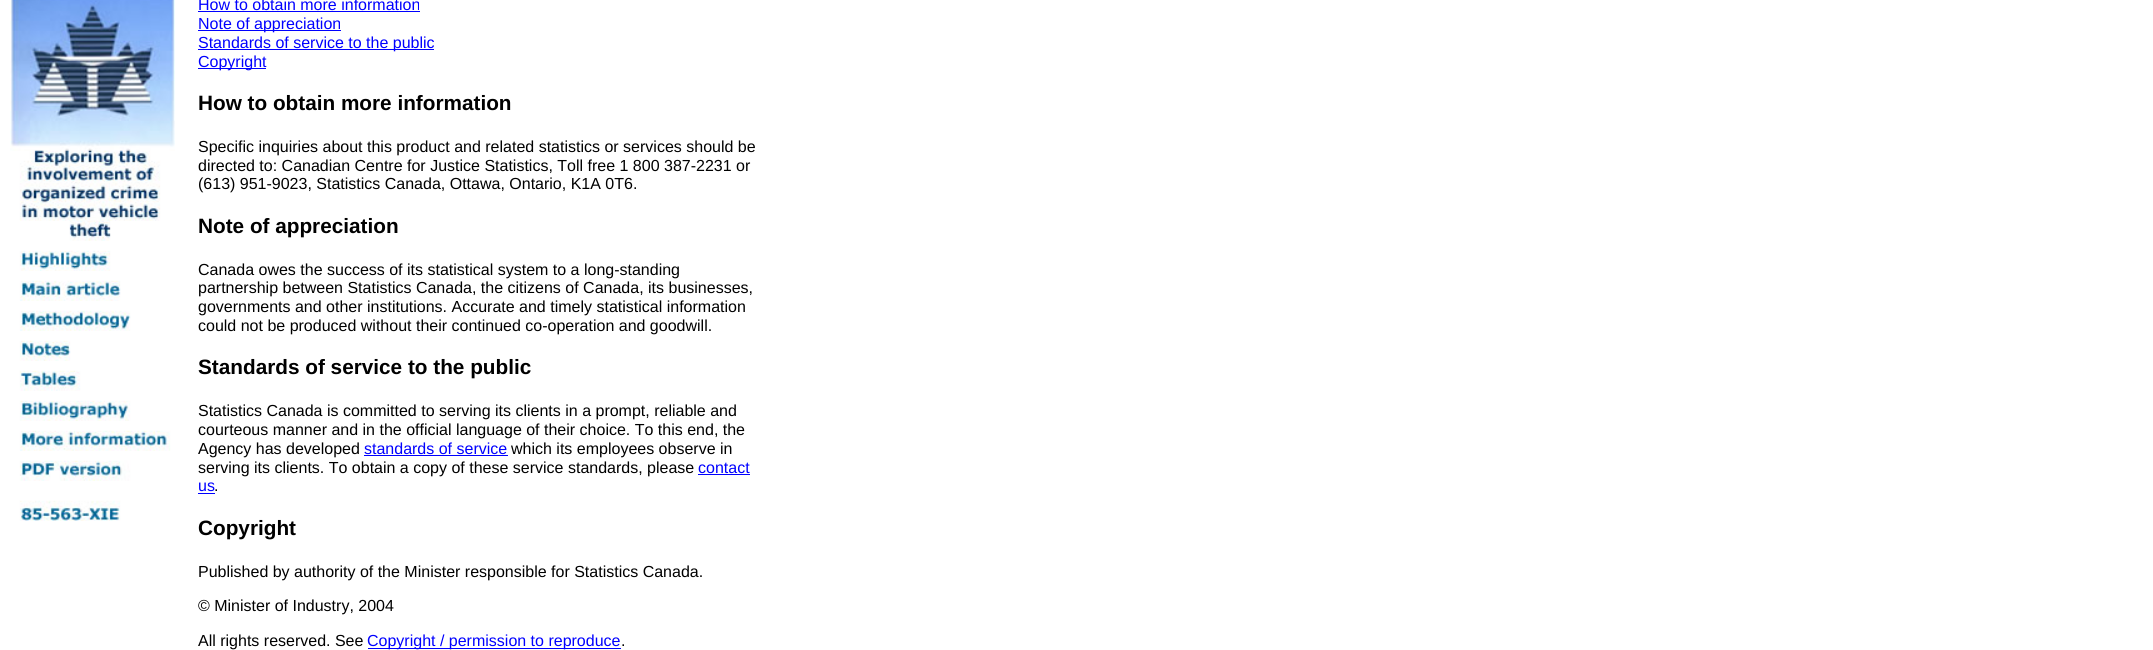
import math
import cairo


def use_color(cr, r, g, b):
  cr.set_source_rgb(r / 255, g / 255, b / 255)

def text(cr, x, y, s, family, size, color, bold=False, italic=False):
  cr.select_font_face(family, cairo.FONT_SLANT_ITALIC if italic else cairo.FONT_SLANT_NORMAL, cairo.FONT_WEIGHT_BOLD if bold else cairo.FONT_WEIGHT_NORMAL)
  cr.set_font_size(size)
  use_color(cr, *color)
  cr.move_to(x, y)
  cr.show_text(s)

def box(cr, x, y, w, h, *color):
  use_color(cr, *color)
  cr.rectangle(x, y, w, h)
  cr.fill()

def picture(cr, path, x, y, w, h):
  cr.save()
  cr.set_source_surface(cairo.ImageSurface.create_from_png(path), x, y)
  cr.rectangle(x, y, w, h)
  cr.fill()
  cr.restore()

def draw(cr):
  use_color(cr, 255, 255, 255)
  cr.paint()
  picture(cr, "img_01.png", 10, 0, 165, 521)
  box(cr, 198, 11, 222, 1, 0, 0, 255)
  box(cr, 198, 30, 143, 1, 0, 0, 255)
  box(cr, 198, 49, 236, 1, 0, 0, 255)
  box(cr, 198, 68, 68, 1, 0, 0, 255)
  box(cr, 364, 455, 144, 1, 0, 0, 255)
  box(cr, 698, 474, 52, 1, 0, 0, 255)
  box(cr, 198, 493, 17, 1, 0, 0, 255)
  box(cr, 368, 648, 253, 1, 0, 0, 255)
  text(cr, 198, 10, "How to obtain more information", "Liberation Sans", 16, (0, 0, 255))
  text(cr, 198, 29, "Note of appreciation", "Liberation Sans", 16, (0, 0, 255))
  text(cr, 198, 48, "Standards of service to the public", "Liberation Sans", 16, (0, 0, 255))
  text(cr, 198, 67, "Copyright", "Liberation Sans", 16, (0, 0, 255))
  text(cr, 198, 110, "How to obtain more information", "Liberation Sans", 20.75, (0, 0, 0), bold=True)
  text(cr, 198, 152, "Specific inquiries about this product and related statistics or services should be", "Liberation Sans", 16, (0, 0, 0))
  text(cr, 198, 171, "directed to: Canadian Centre for Justice Statistics, Toll free 1 800 387-2231 or", "Liberation Sans", 16, (0, 0, 0))
  text(cr, 198, 189, "(613) 951-9023, Statistics Canada, Ottawa, Ontario, K1A 0T6.", "Liberation Sans", 16, (0, 0, 0))
  text(cr, 198, 233, "Note of appreciation", "Liberation Sans", 20.75, (0, 0, 0), bold=True)
  text(cr, 198, 275, "Canada owes the success of its statistical system to a long-standing", "Liberation Sans", 16, (0, 0, 0))
  text(cr, 198, 293, "partnership between Statistics Canada, the citizens of Canada, its businesses,", "Liberation Sans", 16, (0, 0, 0))
  text(cr, 198, 312, "governments and other institutions. Accurate and timely statistical information", "Liberation Sans", 16, (0, 0, 0))
  text(cr, 198, 331, "could not be produced without their continued co-operation and goodwill.", "Liberation Sans", 16, (0, 0, 0))
  text(cr, 198, 374, "Standards of service to the public", "Liberation Sans", 20.75, (0, 0, 0), bold=True)
  text(cr, 198, 416, "Statistics Canada is committed to serving its clients in a prompt, reliable and", "Liberation Sans", 16, (0, 0, 0))
  text(cr, 198, 435, "courteous manner and in the official language of their choice. To this end, the", "Liberation Sans", 16, (0, 0, 0))
  text(cr, 198, 454, "Agency has developed", "Liberation Sans", 16, (0, 0, 0))
  text(cr, 364, 454, "standards of service", "Liberation Sans", 16, (0, 0, 255))
  text(cr, 511, 454, "which its employees observe in", "Liberation Sans", 16, (0, 0, 0))
  text(cr, 198, 473, "serving its clients. To obtain a copy of these service standards, please", "Liberation Sans", 16, (0, 0, 0))
  text(cr, 698, 473, "contact", "Liberation Sans", 16, (0, 0, 255))
  text(cr, 198, 491, "us", "Liberation Sans", 16, (0, 0, 255))
  text(cr, 214, 491, ".", "Liberation Sans", 16, (0, 0, 0))
  text(cr, 198, 535, "Copyright", "Liberation Sans", 20.75, (0, 0, 0), bold=True)
  text(cr, 198, 577, "Published by authority of the Minister responsible for Statistics Canada.", "Liberation Sans", 16, (0, 0, 0))
  text(cr, 198, 611, "© Minister of Industry, 2004", "Liberation Sans", 16, (0, 0, 0))
  text(cr, 198, 646, "All rights reserved. See", "Liberation Sans", 16, (0, 0, 0))
  text(cr, 367, 646, "Copyright / permission to reproduce", "Liberation Sans", 16, (0, 0, 255))
  text(cr, 621, 646, ".", "Liberation Sans", 16, (0, 0, 0))


surface = cairo.ImageSurface(cairo.FORMAT_RGB24, 2153, 650)
cr = cairo.Context(surface)
options = cairo.FontOptions()
options.set_hint_metrics(cairo.HINT_METRICS_OFF)
options.set_hint_style(cairo.HINT_STYLE_NONE)
cr.set_font_options(options)
cr.set_miter_limit(4)
draw(cr)
surface.write_to_png("out.png")
